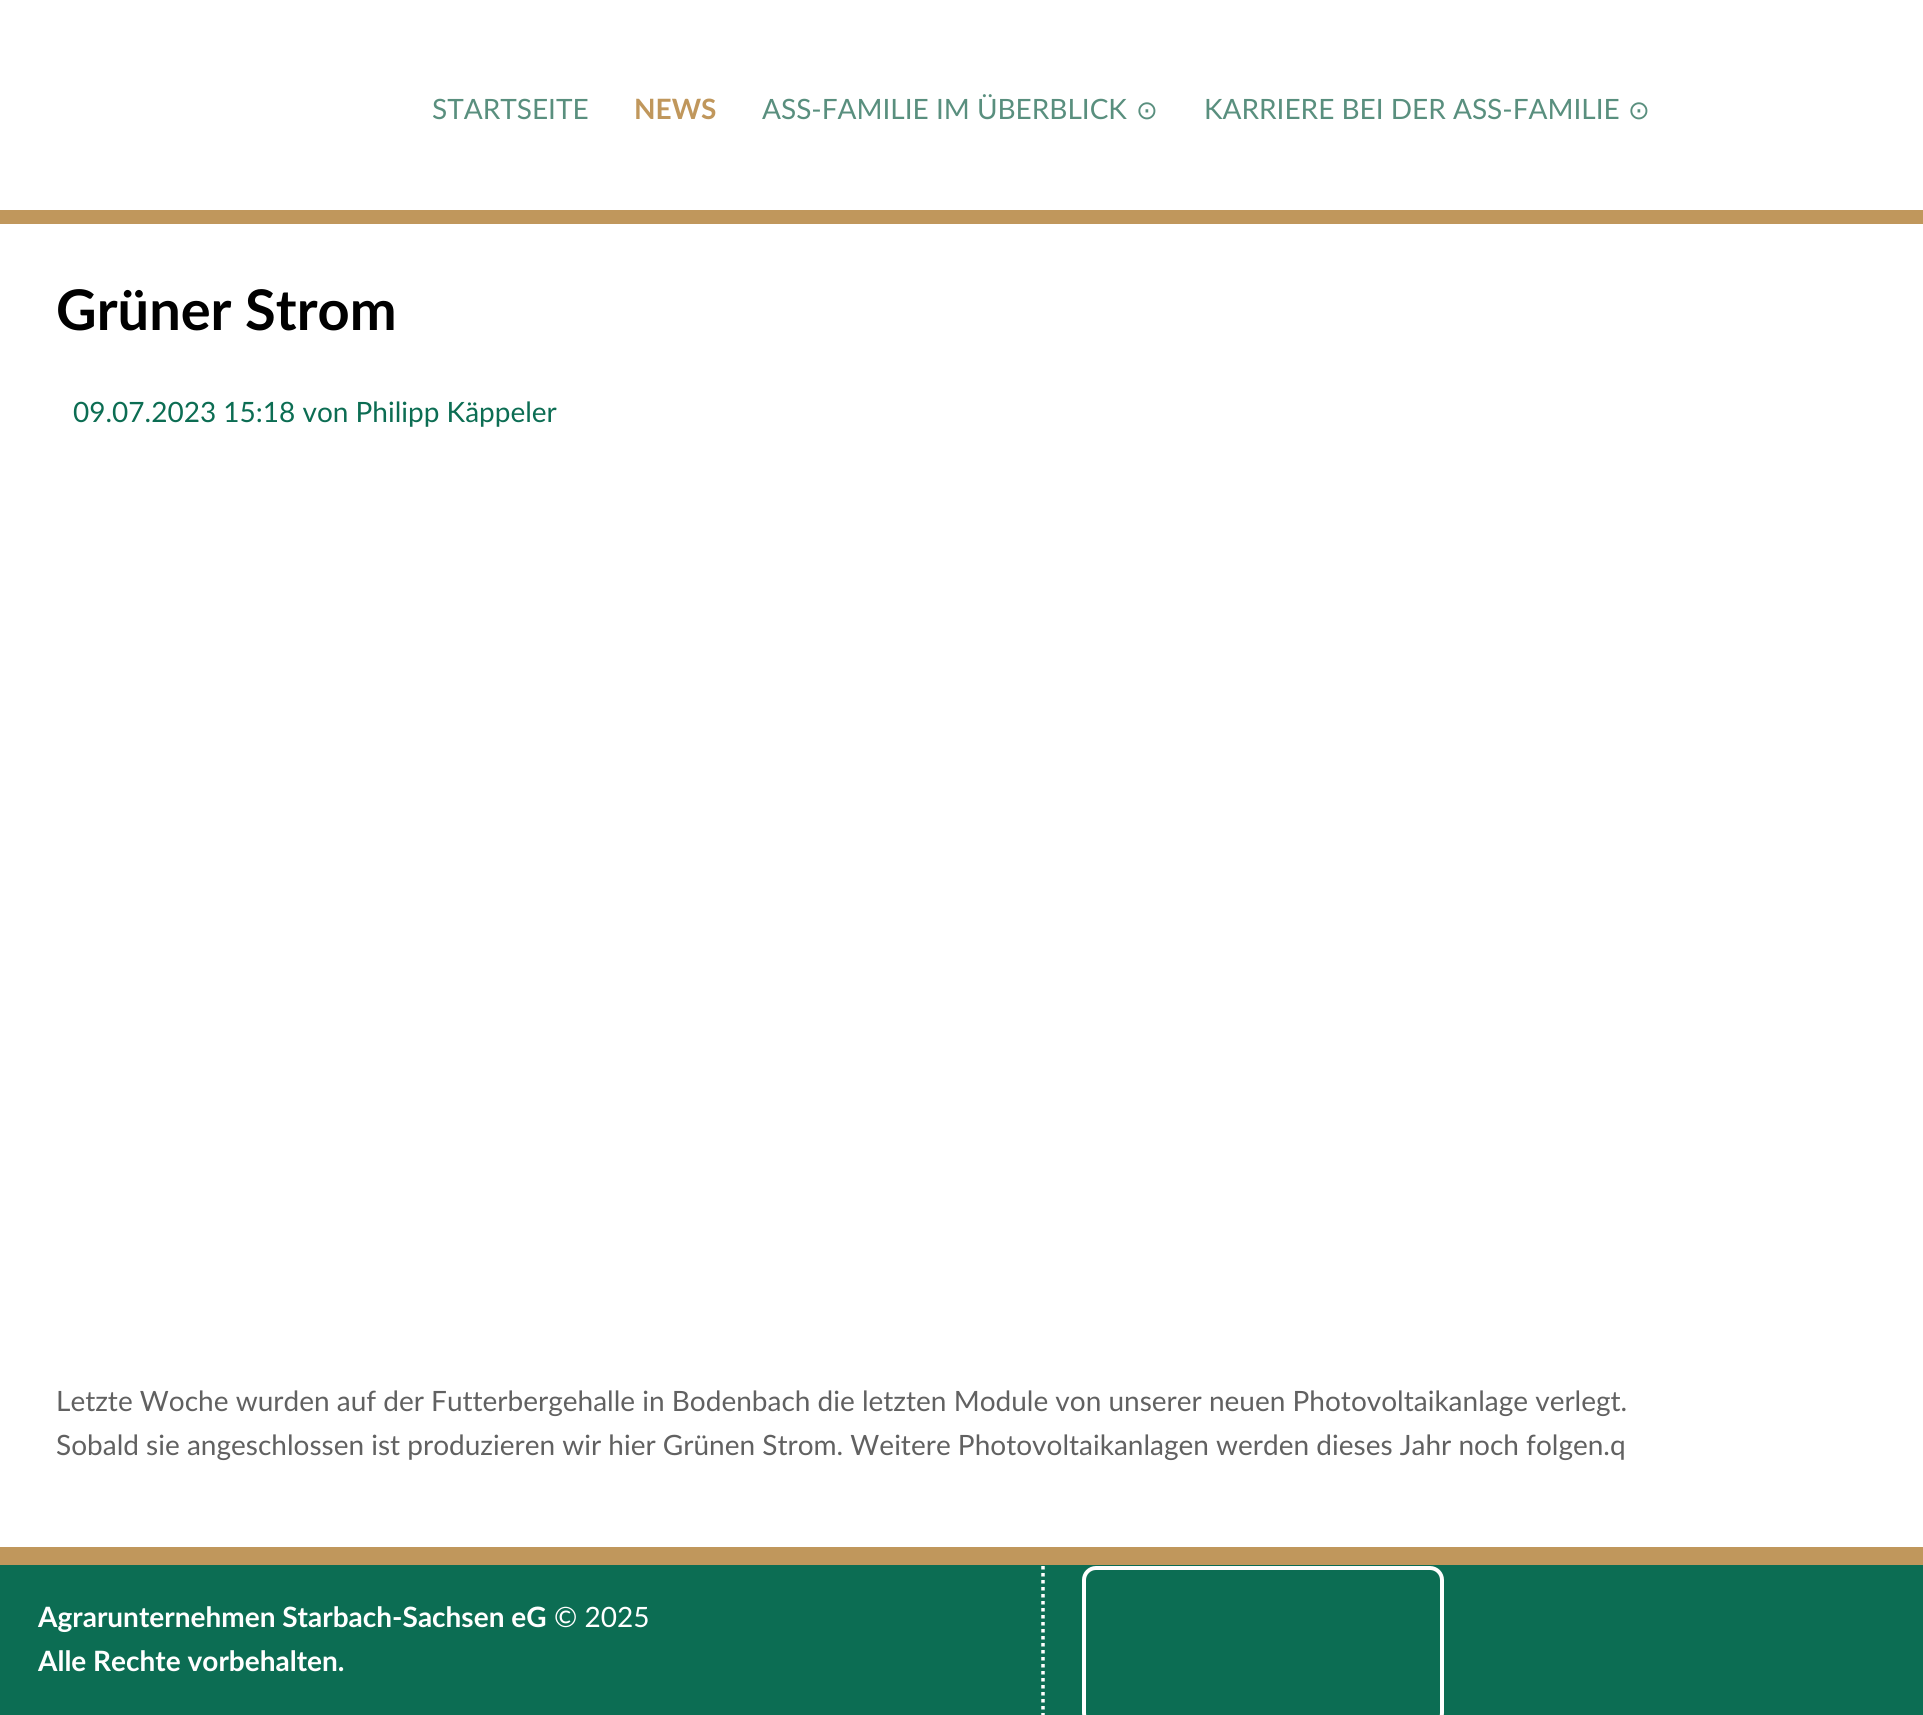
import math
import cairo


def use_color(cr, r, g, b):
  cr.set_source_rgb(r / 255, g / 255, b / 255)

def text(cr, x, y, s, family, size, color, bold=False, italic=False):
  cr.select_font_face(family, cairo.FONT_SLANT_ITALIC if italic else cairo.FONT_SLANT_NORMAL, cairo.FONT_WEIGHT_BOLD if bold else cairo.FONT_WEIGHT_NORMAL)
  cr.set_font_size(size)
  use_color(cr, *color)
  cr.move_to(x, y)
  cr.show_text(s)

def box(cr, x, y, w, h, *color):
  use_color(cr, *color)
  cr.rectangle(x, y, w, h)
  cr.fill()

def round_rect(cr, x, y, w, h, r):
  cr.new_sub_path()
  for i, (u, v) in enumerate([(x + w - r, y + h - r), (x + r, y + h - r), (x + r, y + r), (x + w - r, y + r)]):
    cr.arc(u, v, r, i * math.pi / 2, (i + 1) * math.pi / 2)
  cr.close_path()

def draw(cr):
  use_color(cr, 255, 255, 255)
  cr.paint()
  box(cr, 0, 210, 1923, 14, 192, 151, 92)
  box(cr, 0, 1565, 1923, 150, 12, 109, 83)
  box(cr, 0, 1547, 1923, 18, 192, 151, 92)
  cr.new_path()
  cr.move_to(1043, 1566)
  cr.line_to(1043, 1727)
  use_color(cr, 255, 255, 255)
  cr.set_line_width(3.5)
  cr.set_dash([3.5, 3.5])
  cr.stroke()
  round_rect(cr, 1084, 1568, 358, 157, 12)
  cr.set_line_width(4)
  cr.set_dash([])
  cr.stroke()
  text(cr, 432, 119, "STARTSEITE", "Lato", 28, (89, 143, 126))
  text(cr, 634, 119, "NEWS", "Lato", 28, (192, 151, 92), bold=True)
  text(cr, 762, 119, "ASS-FAMILIE IM ÜBERBLICK", "Lato", 28, (89, 143, 126))
  text(cr, 1136, 119, "⊙", "DejaVu Sans", 26, (89, 143, 126))
  text(cr, 1204, 119, "KARRIERE BEI DER ASS-FAMILIE", "Lato", 28, (89, 143, 126))
  text(cr, 1628, 119, "⊙", "DejaVu Sans", 26, (89, 143, 126))
  text(cr, 56, 330, "Grüner Strom", "Lato", 56, (0, 0, 0), bold=True)
  text(cr, 73, 422, "09.07.2023 15:18 von Philipp Käppeler", "Lato", 28, (12, 109, 83))
  text(cr, 56, 1411, "Letzte Woche wurden auf der Futterbergehalle in Bodenbach die letzten Module von unserer neuen Photovoltaikanlage verlegt.", "Lato", 28, (97, 97, 97))
  text(cr, 56, 1455, "Sobald sie angeschlossen ist produzieren wir hier Grünen Strom. Weitere Photovoltaikanlagen werden dieses Jahr noch folgen.q", "Lato", 28, (97, 97, 97))
  text(cr, 38, 1627, "Agrarunternehmen Starbach-Sachsen eG", "Lato", 28, (255, 255, 255), bold=True)
  text(cr, 554, 1627, "© 2025", "Lato", 28, (255, 255, 255))
  text(cr, 38, 1671, "Alle Rechte vorbehalten.", "Lato", 28, (255, 255, 255), bold=True)


surface = cairo.ImageSurface(cairo.FORMAT_RGB24, 1923, 1715)
cr = cairo.Context(surface)
options = cairo.FontOptions()
options.set_hint_metrics(cairo.HINT_METRICS_OFF)
options.set_hint_style(cairo.HINT_STYLE_NONE)
cr.set_font_options(options)
cr.set_miter_limit(4)
draw(cr)
surface.write_to_png("out.png")
